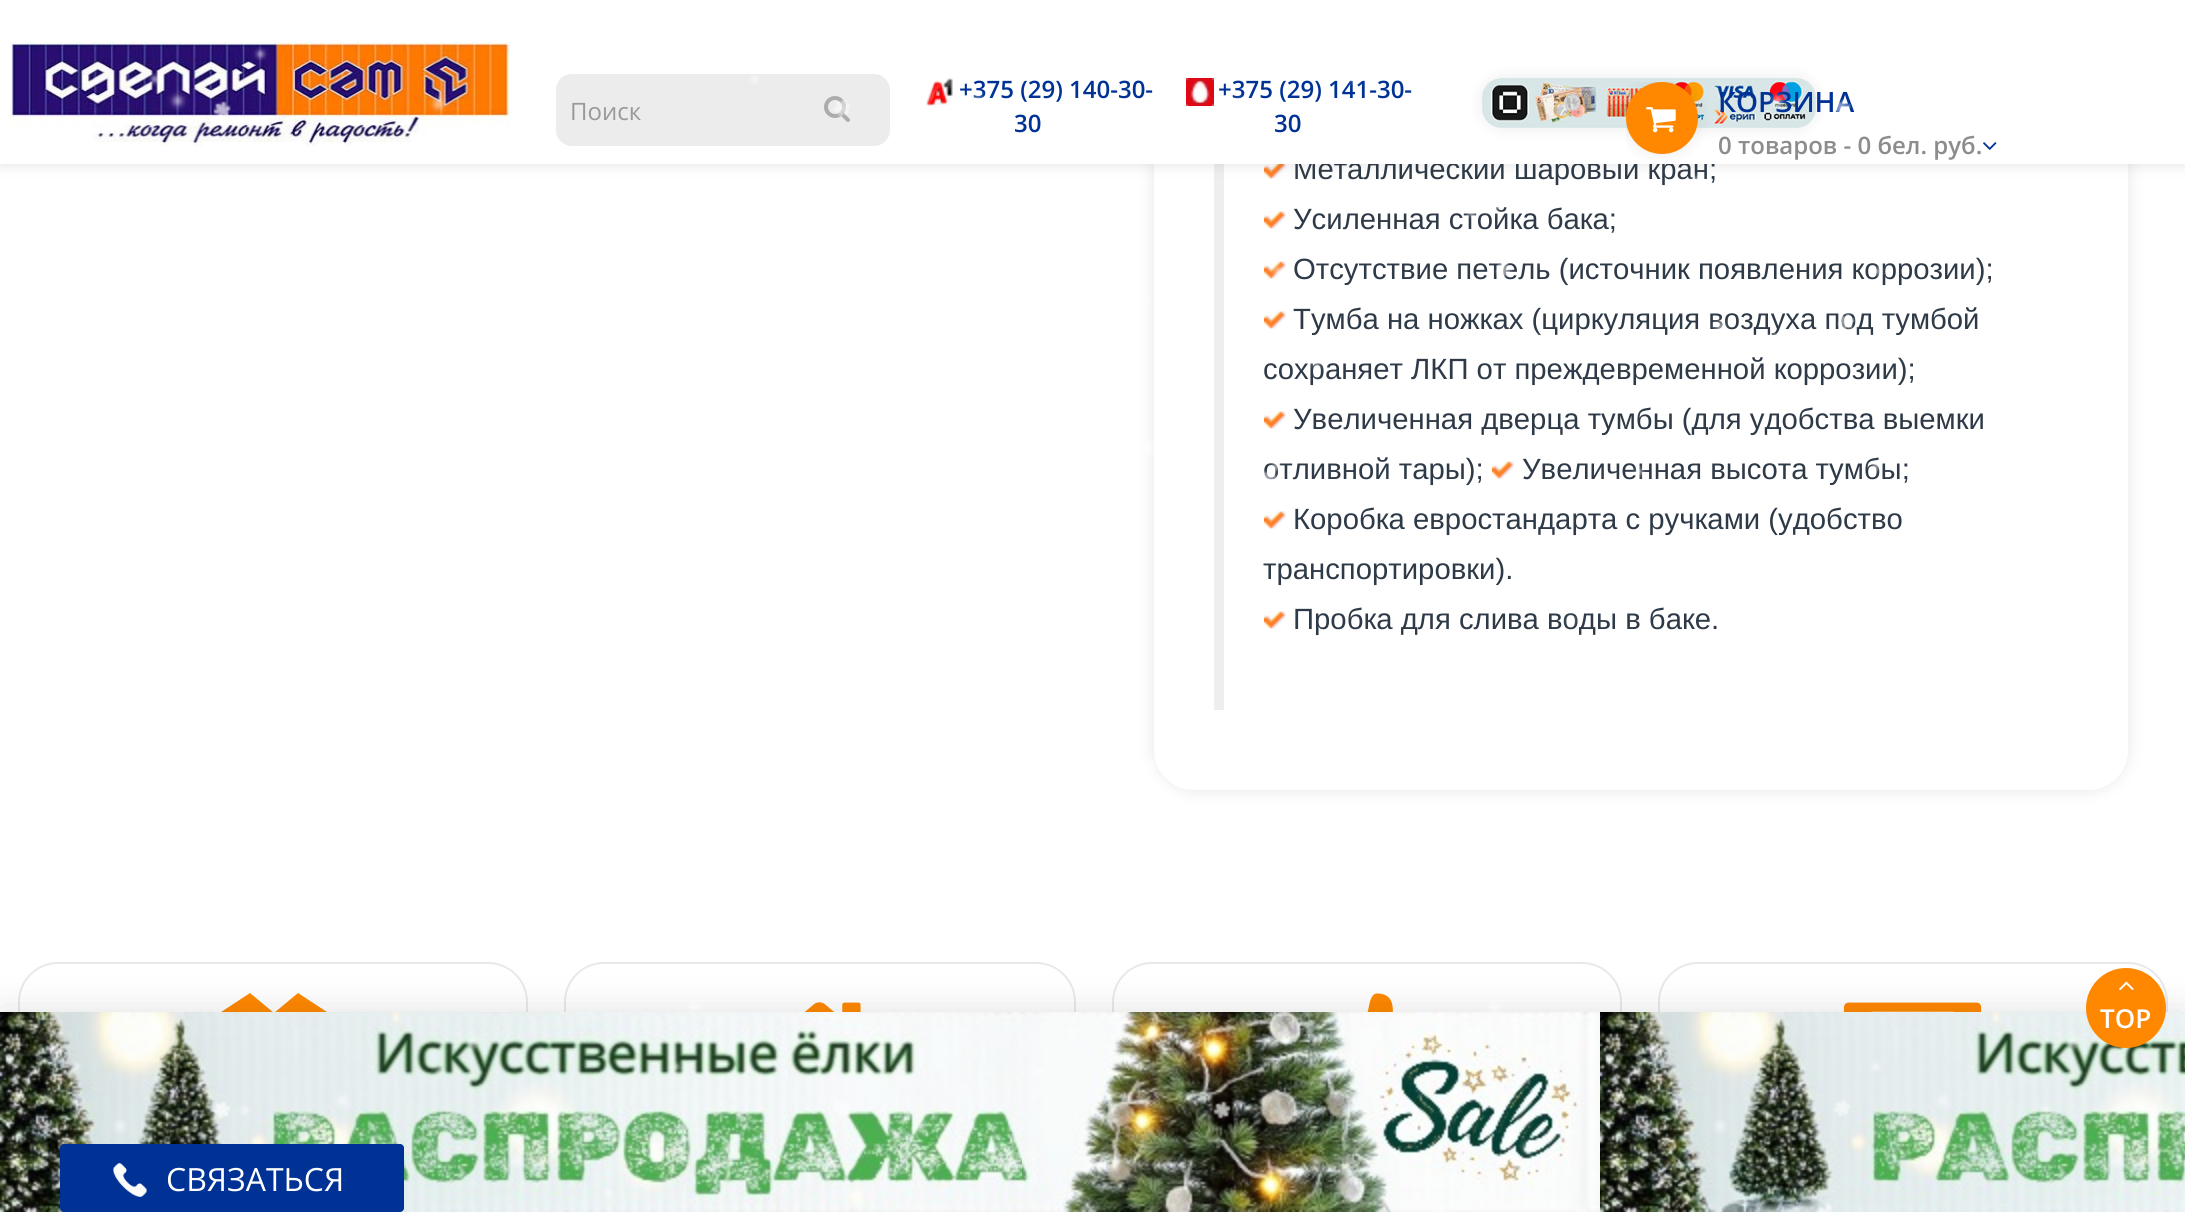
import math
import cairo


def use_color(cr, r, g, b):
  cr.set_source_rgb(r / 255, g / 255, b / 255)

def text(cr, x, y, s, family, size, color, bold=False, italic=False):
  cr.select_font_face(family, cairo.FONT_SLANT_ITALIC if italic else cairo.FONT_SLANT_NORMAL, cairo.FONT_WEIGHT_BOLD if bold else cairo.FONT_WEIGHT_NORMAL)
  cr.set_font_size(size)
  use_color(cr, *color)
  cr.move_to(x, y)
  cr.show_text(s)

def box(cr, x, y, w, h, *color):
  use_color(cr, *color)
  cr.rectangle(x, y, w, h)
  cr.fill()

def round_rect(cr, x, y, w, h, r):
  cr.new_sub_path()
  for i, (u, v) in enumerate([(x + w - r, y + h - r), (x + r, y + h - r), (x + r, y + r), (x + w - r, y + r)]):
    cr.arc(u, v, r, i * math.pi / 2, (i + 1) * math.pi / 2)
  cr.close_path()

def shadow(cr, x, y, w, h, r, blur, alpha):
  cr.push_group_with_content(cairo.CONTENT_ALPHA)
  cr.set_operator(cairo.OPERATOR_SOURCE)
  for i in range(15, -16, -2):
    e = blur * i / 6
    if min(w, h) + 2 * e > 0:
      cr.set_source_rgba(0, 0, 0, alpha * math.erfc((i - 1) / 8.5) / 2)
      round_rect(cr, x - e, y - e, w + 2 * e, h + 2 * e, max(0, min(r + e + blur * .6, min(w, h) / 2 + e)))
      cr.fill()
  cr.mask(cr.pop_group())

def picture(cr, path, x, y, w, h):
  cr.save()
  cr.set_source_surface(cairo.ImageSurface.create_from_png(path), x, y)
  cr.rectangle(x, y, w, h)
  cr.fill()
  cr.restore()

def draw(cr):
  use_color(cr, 255, 255, 255)
  cr.paint()
  cr.save()
  cr.set_fill_rule(cairo.FILL_RULE_EVEN_ODD)
  cr.new_path()
  cr.move_to(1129, 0)
  cr.line_to(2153, 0)
  cr.line_to(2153, 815)
  cr.line_to(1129, 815)
  cr.close_path()
  cr.move_to(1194, -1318)
  cr.line_to(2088, -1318)
  cr.curve_to(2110, -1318, 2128, -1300, 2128, -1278)
  cr.line_to(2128, 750)
  cr.curve_to(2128, 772, 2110, 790, 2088, 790)
  cr.line_to(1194, 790)
  cr.curve_to(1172, 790, 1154, 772, 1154, 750)
  cr.line_to(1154, -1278)
  cr.curve_to(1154, -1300, 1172, -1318, 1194, -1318)
  cr.close_path()
  cr.clip()
  use_color(cr, 0, 0, 0)
  shadow(cr, 1154, -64, 974, 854, 40, 8, 0.1)
  cr.restore()
  box(cr, 1214, 164, 10, 546, 238, 238, 238)
  picture(cr, "img_09.png", 1264, 164, 22, 15)
  use_color(cr, 0, 0, 0)
  shadow(cr, 0, 0, 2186, 164, 0, 8, 0.12)
  picture(cr, "img_10.png", 1264, 211, 22, 18)
  picture(cr, "img_10.png", 1264, 261, 22, 18)
  picture(cr, "img_10.png", 1264, 311, 22, 18)
  picture(cr, "img_10.png", 1264, 411, 22, 18)
  picture(cr, "img_10.png", 1492, 461, 22, 18)
  picture(cr, "img_10.png", 1264, 511, 22, 18)
  picture(cr, "img_10.png", 1264, 611, 22, 18)
  round_rect(cr, 19, 963, 508, 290, 39)
  use_color(cr, 233, 233, 233)
  cr.stroke()
  use_color(cr, 255, 136, 0)
  cr.new_path()
  cr.move_to(239, 1035)
  cr.line_to(215, 1054)
  cr.line_to(250, 1077)
  cr.line_to(274, 1057)
  cr.close_path()
  cr.move_to(309, 1074)
  cr.line_to(299, 1081)
  cr.line_to(274, 1061)
  cr.line_to(250, 1081)
  cr.line_to(239, 1074)
  cr.line_to(239, 1082)
  cr.line_to(274, 1103)
  cr.line_to(309, 1082)
  cr.close_path()
  cr.move_to(250, 993)
  cr.line_to(215, 1016)
  cr.line_to(239, 1035)
  cr.line_to(274, 1013)
  cr.close_path()
  cr.move_to(309, 1035)
  cr.line_to(274, 1057)
  cr.line_to(298, 1077)
  cr.line_to(333, 1054)
  cr.close_path()
  cr.move_to(298, 993)
  cr.line_to(274, 1013)
  cr.line_to(309, 1035)
  cr.line_to(333, 1016)
  cr.close_path()
  cr.fill()
  round_rect(cr, 565, 963, 510, 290, 39)
  use_color(cr, 233, 233, 233)
  cr.stroke()
  picture(cr, "img_13.png", 804, 1002, 57, 10)
  round_rect(cr, 1113, 963, 508, 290, 39)
  cr.stroke()
  picture(cr, "img_14.png", 1367, 993, 26, 19)
  round_rect(cr, 1659, 963, 508, 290, 39)
  cr.stroke()
  picture(cr, "img_15.png", 1844, 1002, 138, 10)
  use_color(cr, 0, 0, 0)
  shadow(cr, 0, 1012, 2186, 200, 0, 20, 0.12)
  picture(cr, "img_11.png", 0, 1012, 1600, 200)
  picture(cr, "img_12.png", 1600, 1012, 585, 200)
  use_color(cr, 0, 50, 149)
  round_rect(cr, 60, 1144, 344, 68, 4)
  cr.fill()
  picture(cr, "img_17.png", 113, 1163, 34, 34)
  text(cr, 1293, 179, "Металлический шаровый кран;", "Liberation Sans", 29.3, (46, 58, 71))
  box(cr, 0, 0, 2185, 164, 255, 255, 255)
  picture(cr, "img_08.png", 1983, 142, 14, 8)
  use_color(cr, 0, 0, 0)
  shadow(cr, 1482, 78, 334, 50, 20, 8, 0.08)
  picture(cr, "img_06.png", 1482, 78, 334, 50)
  cr.save()
  cr.rectangle(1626, 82, 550, 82)
  cr.clip()
  shadow(cr, 1626, 82, 72, 72, 36, 8, 0.08)
  cr.restore()
  use_color(cr, 255, 136, 0)
  cr.arc(1662, 118, 36, 0, 2 * math.pi)
  cr.fill()
  picture(cr, "img_07.png", 1646, 107, 30, 26)
  text(cr, 1718, 154, "0 товаров - 0 бел. руб.", "Open Sans SemiBold", 24, (140, 140, 140))
  text(cr, 1718, 112, "КОРЗИНА", "Open Sans SemiBold", 28, (0, 50, 149))
  text(cr, 1274, 132, "30", "Open Sans SemiBold", 24, (0, 50, 149))
  text(cr, 1218, 98, "+375 (29) 141-30-", "Open Sans SemiBold", 24, (0, 50, 149))
  picture(cr, "img_05.png", 1186, 78, 28, 28)
  text(cr, 1014, 132, "30", "Open Sans SemiBold", 24, (0, 50, 149))
  text(cr, 959, 98, "+375 (29) 140-30-", "Open Sans SemiBold", 24, (0, 50, 149))
  picture(cr, "img_04.png", 926, 78, 27, 28)
  use_color(cr, 236, 236, 236)
  round_rect(cr, 556, 74, 334, 72, 16)
  cr.fill()
  picture(cr, "img_03.png", 824, 96, 26, 26)
  text(cr, 570, 120, "Поиск", "Open Sans", 24, (153, 153, 153))
  picture(cr, "img_02.png", 10, 42, 500, 104)
  text(cr, 1293, 229, "Усиленная стойка бака;", "Liberation Sans", 29.3, (46, 58, 71))
  text(cr, 1293, 279, "Отсутствие петель (источник появления коррозии);", "Liberation Sans", 29.3, (46, 58, 71))
  text(cr, 1293, 329, "Тумба на ножках (циркуляция воздуха под тумбой", "Liberation Sans", 29.3, (46, 58, 71))
  text(cr, 1263, 379, "сохраняет ЛКП от преждевременной коррозии);", "Liberation Sans", 29.3, (46, 58, 71))
  text(cr, 1293, 429, "Увеличенная дверца тумбы (для удобства выемки", "Liberation Sans", 29.3, (46, 58, 71))
  text(cr, 1263, 479, "отливной тары);", "Liberation Sans", 29.3, (46, 58, 71))
  text(cr, 1522, 479, "Увеличенная высота тумбы;", "Liberation Sans", 29.3, (46, 58, 71))
  text(cr, 1293, 529, "Коробка евростандарта с ручками (удобство", "Liberation Sans", 29.3, (46, 58, 71))
  text(cr, 1263, 579, "транспортировки).", "Liberation Sans", 29.3, (46, 58, 71))
  text(cr, 1293, 629, "Пробка для слива воды в баке.", "Liberation Sans", 29.3, (46, 58, 71))
  text(cr, 166, 1191, "СВЯЗАТЬСЯ", "Open Sans", 32, (255, 255, 255))
  picture(cr, "img_01.png", 1, 47, 2124, 1153)
  use_color(cr, 255, 136, 0)
  cr.arc(2126, 1008, 40, 0, 2 * math.pi)
  cr.fill()
  picture(cr, "img_16.png", 2119, 981, 15, 9)
  text(cr, 2100, 1028, "TOP", "Open Sans SemiBold", 26, (255, 255, 255))


surface = cairo.ImageSurface(cairo.FORMAT_RGB24, 2185, 1212)
cr = cairo.Context(surface)
options = cairo.FontOptions()
options.set_hint_metrics(cairo.HINT_METRICS_OFF)
options.set_hint_style(cairo.HINT_STYLE_NONE)
cr.set_font_options(options)
cr.set_miter_limit(4)
draw(cr)
surface.write_to_png("out.png")
